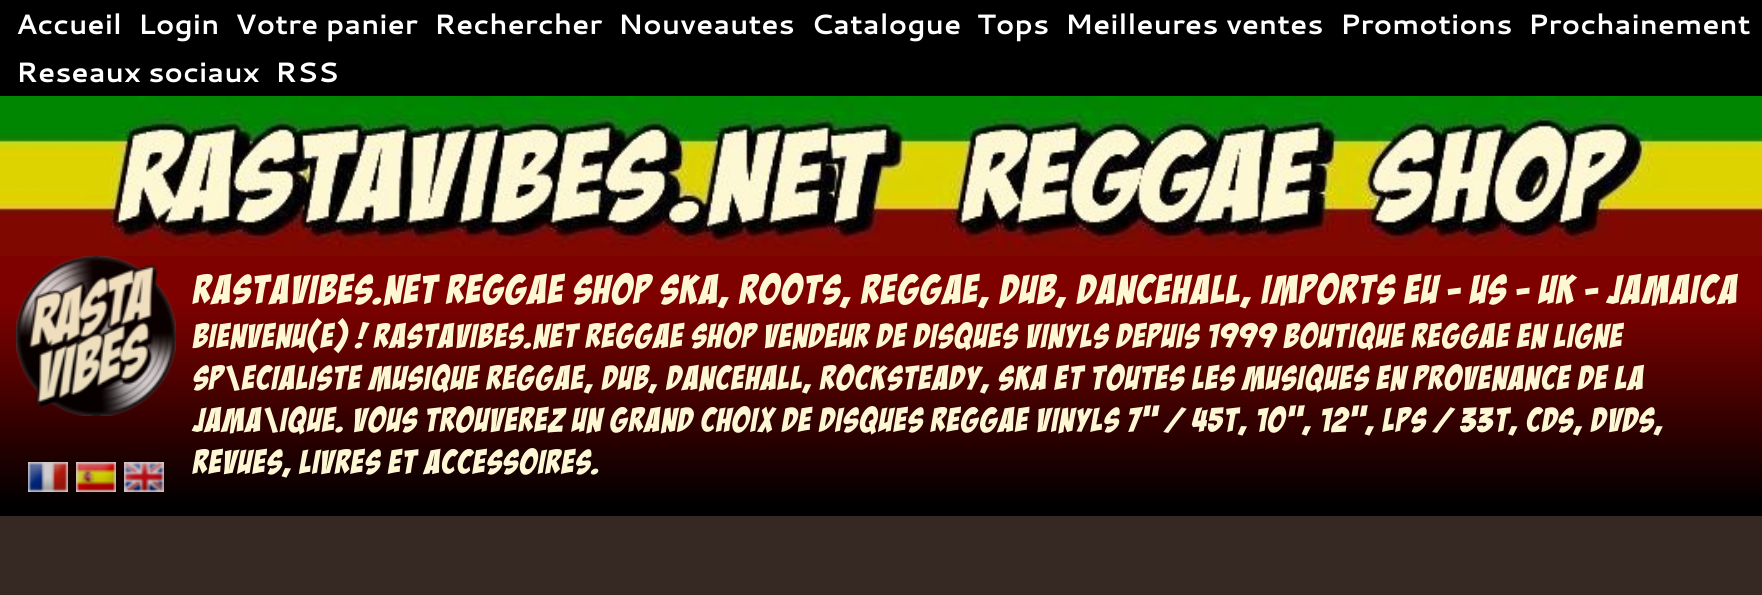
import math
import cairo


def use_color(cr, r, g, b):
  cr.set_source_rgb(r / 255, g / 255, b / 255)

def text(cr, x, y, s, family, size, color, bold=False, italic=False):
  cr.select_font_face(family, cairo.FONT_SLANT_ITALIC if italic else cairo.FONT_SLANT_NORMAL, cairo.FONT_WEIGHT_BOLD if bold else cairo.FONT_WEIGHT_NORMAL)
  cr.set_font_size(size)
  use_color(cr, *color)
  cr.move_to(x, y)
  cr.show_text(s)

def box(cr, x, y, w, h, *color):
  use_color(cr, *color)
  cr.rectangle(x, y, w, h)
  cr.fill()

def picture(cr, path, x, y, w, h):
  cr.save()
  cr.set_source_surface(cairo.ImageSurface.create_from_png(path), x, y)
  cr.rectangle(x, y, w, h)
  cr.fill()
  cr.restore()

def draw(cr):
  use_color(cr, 0, 0, 0)
  cr.paint()
  gradient = cairo.LinearGradient(881, 96, 881, 506)
  gradient.add_color_stop_rgba(0, 0.494, 0.004, 0, 1)
  gradient.add_color_stop_rgba(0.5, 0.494, 0.004, 0, 1)
  gradient.add_color_stop_rgba(1, 0, 0, 0, 1)
  cr.set_source(gradient)
  cr.rectangle(0, 256, 1762, 246)
  cr.fill()
  picture(cr, "img_01.png", 16, 256, 160, 160)
  picture(cr, "img_02.png", 28, 462, 40, 30)
  picture(cr, "img_03.png", 76, 462, 40, 30)
  picture(cr, "img_04.png", 124, 462, 40, 30)
  picture(cr, "img_05.png", 0, 96, 1762, 160)
  box(cr, 0, 516, 1762, 79, 54, 41, 35)
  text(cr, 16, 34, "Accueil", "Cantarell", 28, (255, 255, 255), bold=True)
  text(cr, 138, 34, "Login", "Cantarell", 28, (255, 255, 255), bold=True)
  text(cr, 235, 34, "Votre panier", "Cantarell", 28, (255, 255, 255), bold=True)
  text(cr, 434, 34, "Rechercher", "Cantarell", 28, (255, 255, 255), bold=True)
  text(cr, 618, 34, "Nouveautes", "Cantarell", 28, (255, 255, 255), bold=True)
  text(cr, 811, 34, "Catalogue", "Cantarell", 28, (255, 255, 255), bold=True)
  text(cr, 977, 34, "Tops", "Cantarell", 28, (255, 255, 255), bold=True)
  text(cr, 1065, 34, "Meilleures ventes", "Cantarell", 28, (255, 255, 255), bold=True)
  text(cr, 1340, 34, "Promotions", "Cantarell", 28, (255, 255, 255), bold=True)
  text(cr, 1528, 34, "Prochainement", "Cantarell", 28, (255, 255, 255), bold=True)
  text(cr, 16, 82, "Reseaux sociaux", "Cantarell", 28, (255, 255, 255), bold=True)
  text(cr, 275, 82, "RSS", "Cantarell", 28, (255, 255, 255), bold=True)
  text(cr, 192, 304, "RASTAViBES.NET reggae shop ska, roots, reggae, dub, dancehall, imports EU - US - UK - Jamaica", "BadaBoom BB", 42, (253, 247, 211))
  text(cr, 192, 348, "Bienvenu(e) ! rastavibes.net reggae shop vendeur de disques vinyls depuis 1999 boutique reggae en ligne", "BadaBoom BB", 35, (253, 247, 211))
  text(cr, 192, 390, "sp\\ecialiste musique reggae, dub, dancehall, rocksteady, ska et toutes les musiques en provenance de la", "BadaBoom BB", 35, (253, 247, 211))
  text(cr, 192, 432, "Jama\\ique. Vous trouverez un grand choix de disques reggae vinyls 7\" / 45t, 10\", 12\", LPs / 33t, CDs, DVDs,", "BadaBoom BB", 35, (253, 247, 211))
  text(cr, 192, 474, "revues, Livres et Accessoires.", "BadaBoom BB", 35, (253, 247, 211))


surface = cairo.ImageSurface(cairo.FORMAT_RGB24, 1762, 595)
cr = cairo.Context(surface)
options = cairo.FontOptions()
options.set_hint_metrics(cairo.HINT_METRICS_OFF)
options.set_hint_style(cairo.HINT_STYLE_NONE)
cr.set_font_options(options)
cr.set_miter_limit(4)
draw(cr)
surface.write_to_png("out.png")
